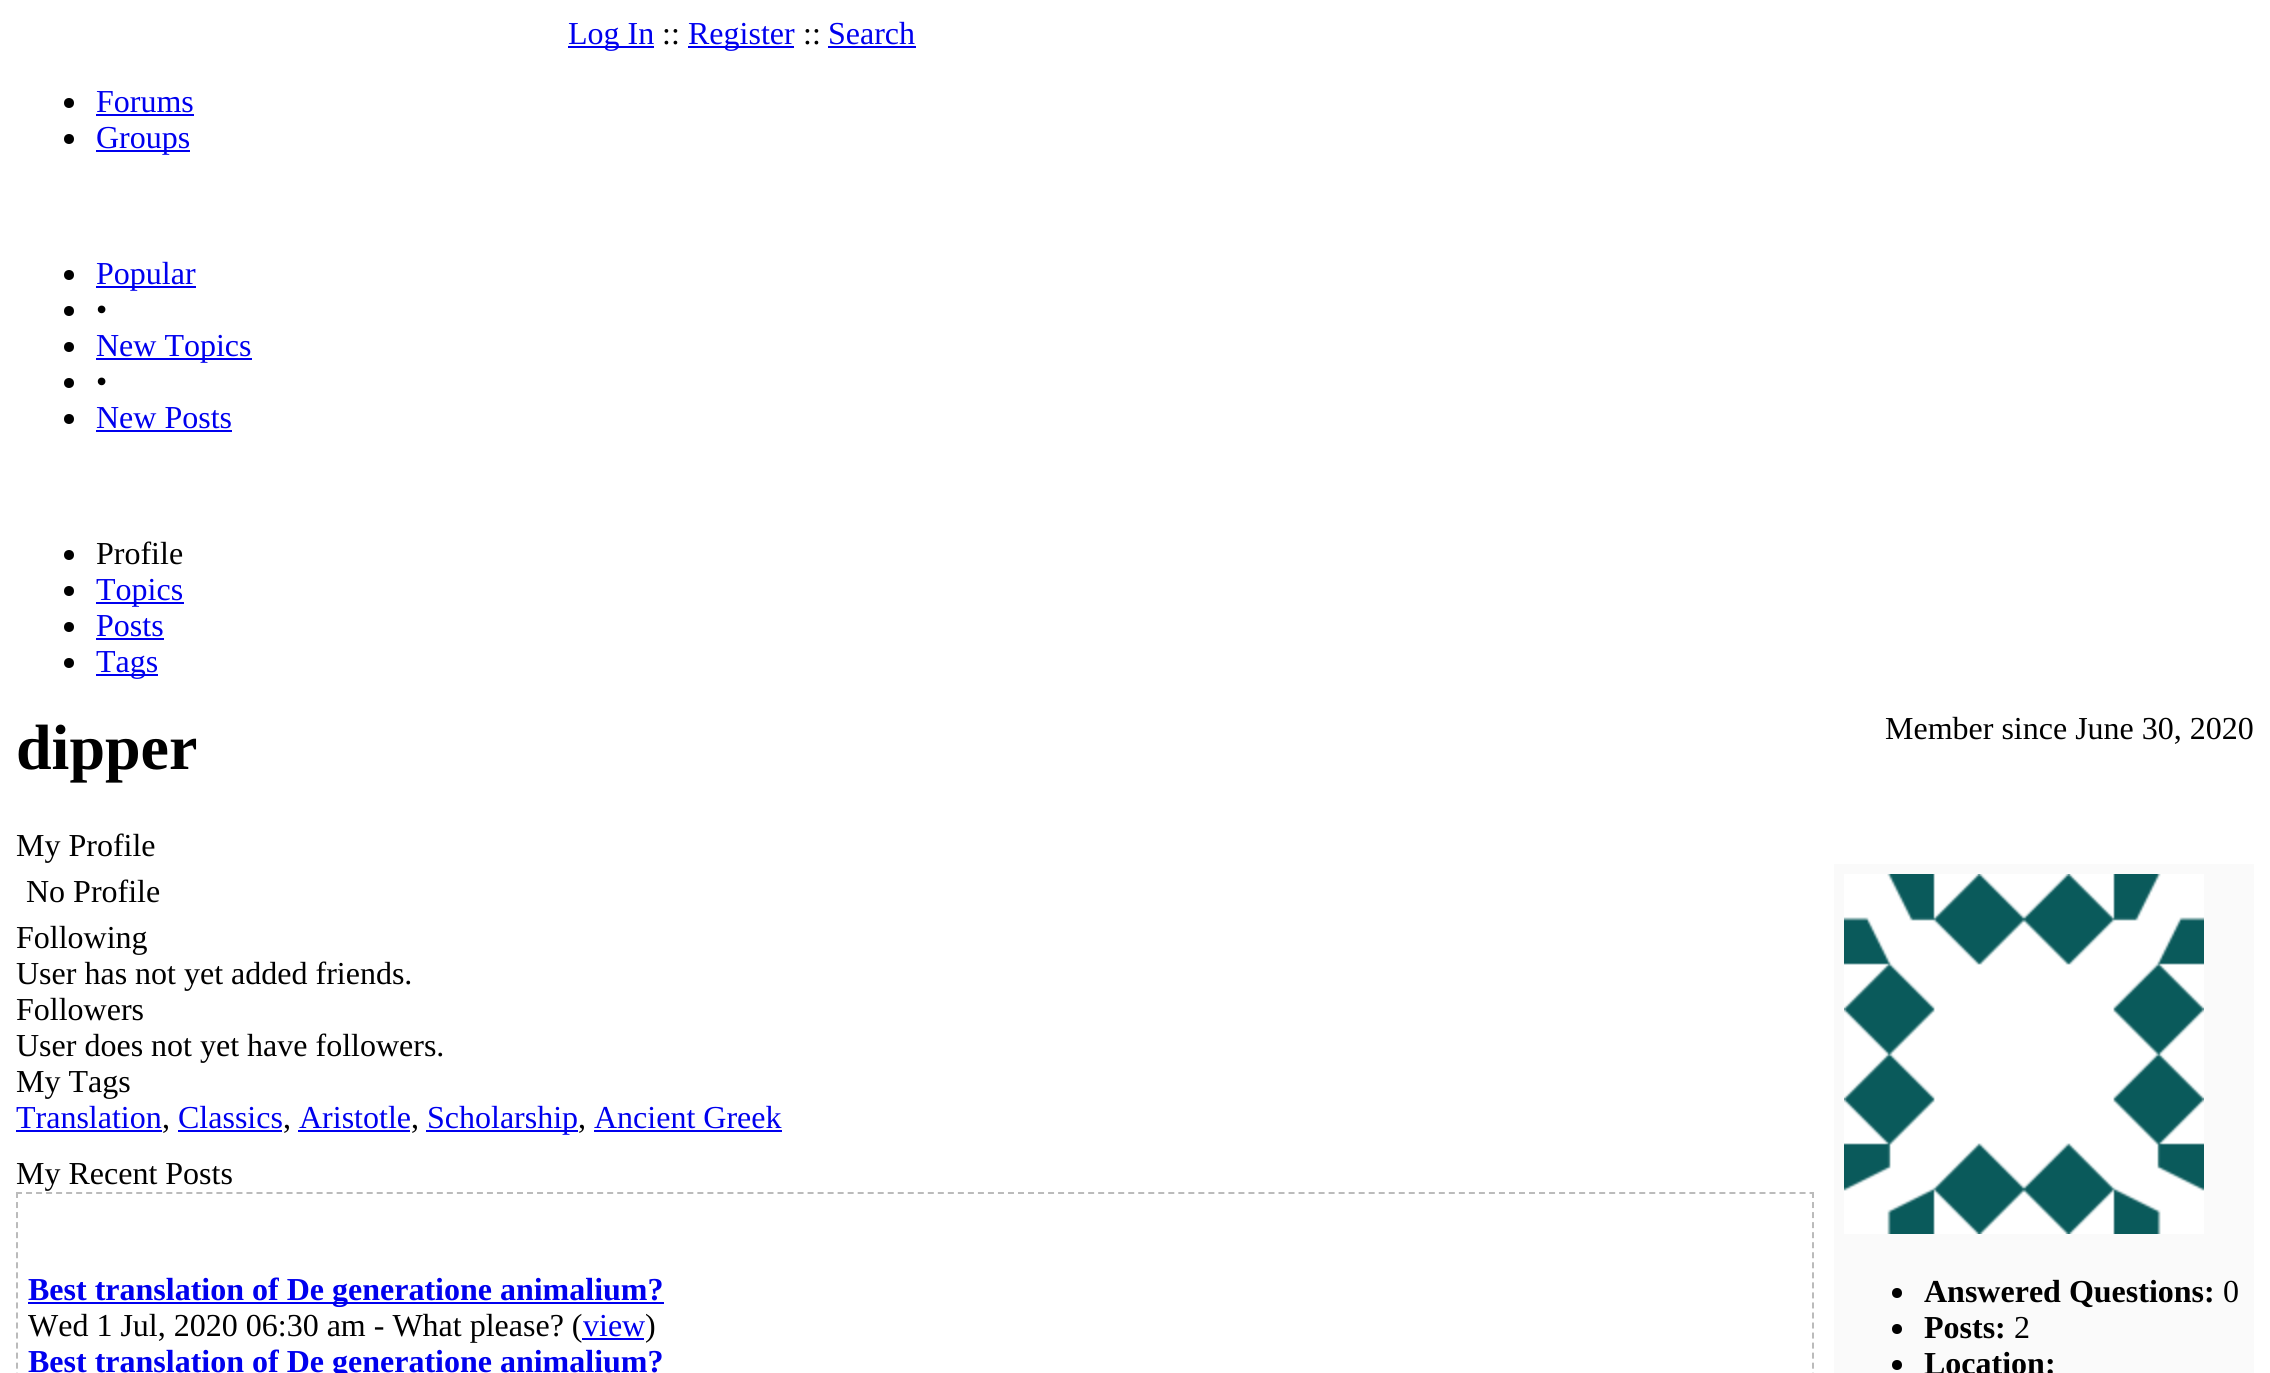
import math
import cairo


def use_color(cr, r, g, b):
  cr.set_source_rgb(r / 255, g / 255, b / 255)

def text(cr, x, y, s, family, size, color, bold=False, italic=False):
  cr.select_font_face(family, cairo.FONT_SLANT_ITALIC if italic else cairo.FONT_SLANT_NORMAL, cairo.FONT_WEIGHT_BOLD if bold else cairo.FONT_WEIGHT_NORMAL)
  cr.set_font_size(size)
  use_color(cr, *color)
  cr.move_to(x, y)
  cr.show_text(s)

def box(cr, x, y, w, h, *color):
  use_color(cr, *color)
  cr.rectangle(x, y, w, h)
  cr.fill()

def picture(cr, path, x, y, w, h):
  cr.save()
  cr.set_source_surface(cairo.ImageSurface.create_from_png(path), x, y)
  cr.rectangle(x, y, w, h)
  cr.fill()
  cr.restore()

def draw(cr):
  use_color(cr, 255, 255, 255)
  cr.paint()
  box(cr, 568, 46, 86, 2, 0, 0, 238)
  box(cr, 688, 46, 106, 2, 0, 0, 238)
  box(cr, 828, 46, 88, 2, 0, 0, 238)
  use_color(cr, 0, 0, 0)
  cr.arc(69, 103, 5, 0, 2 * math.pi)
  cr.fill()
  box(cr, 96, 114, 98, 2, 0, 0, 238)
  use_color(cr, 0, 0, 0)
  cr.arc(69, 139, 5, 0, 2 * math.pi)
  cr.fill()
  box(cr, 96, 150, 94, 2, 0, 0, 238)
  use_color(cr, 0, 0, 0)
  cr.arc(69, 275, 5, 0, 2 * math.pi)
  cr.fill()
  box(cr, 96, 286, 100, 2, 0, 0, 238)
  use_color(cr, 0, 0, 0)
  cr.arc(69, 311, 5, 0, 2 * math.pi)
  cr.fill()
  cr.arc(69, 347, 5, 0, 2 * math.pi)
  cr.fill()
  box(cr, 96, 358, 156, 2, 0, 0, 238)
  use_color(cr, 0, 0, 0)
  cr.arc(69, 383, 5, 0, 2 * math.pi)
  cr.fill()
  cr.arc(69, 419, 5, 0, 2 * math.pi)
  cr.fill()
  box(cr, 96, 430, 136, 2, 0, 0, 238)
  use_color(cr, 0, 0, 0)
  cr.arc(69, 555, 5, 0, 2 * math.pi)
  cr.fill()
  cr.arc(69, 591, 5, 0, 2 * math.pi)
  cr.fill()
  box(cr, 96, 602, 88, 2, 0, 0, 238)
  use_color(cr, 0, 0, 0)
  cr.arc(69, 627, 5, 0, 2 * math.pi)
  cr.fill()
  box(cr, 96, 638, 68, 2, 0, 0, 238)
  use_color(cr, 0, 0, 0)
  cr.arc(69, 663, 5, 0, 2 * math.pi)
  cr.fill()
  box(cr, 96, 674, 62, 2, 0, 0, 238)
  box(cr, 16, 1130, 146, 2, 0, 0, 238)
  box(cr, 178, 1130, 104, 2, 0, 0, 238)
  box(cr, 298, 1130, 112, 2, 0, 0, 238)
  box(cr, 426, 1130, 152, 2, 0, 0, 238)
  box(cr, 594, 1130, 188, 2, 0, 0, 238)
  cr.new_path()
  cr.move_to(16, 1193)
  cr.line_to(1814, 1193)
  use_color(cr, 187, 187, 187)
  cr.set_dash([6, 4.02])
  cr.stroke()
  cr.new_path()
  cr.move_to(1813, 1192)
  cr.line_to(1813, 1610)
  cr.set_dash([6, 4.04])
  cr.stroke()
  cr.new_path()
  cr.move_to(17, 1192)
  cr.line_to(17, 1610)
  cr.stroke()
  box(cr, 28, 1302, 636, 2, 0, 0, 238)
  box(cr, 582, 1338, 62, 2, 0, 0, 238)
  box(cr, 1834, 864, 420, 509, 250, 250, 250)
  picture(cr, "img_01.png", 1844, 874, 360, 360)
  use_color(cr, 0, 0, 0)
  cr.arc(1897, 1293, 5, 0, 2 * math.pi)
  cr.fill()
  cr.arc(1897, 1329, 5, 0, 2 * math.pi)
  cr.fill()
  cr.arc(1897, 1365, 5, 0, 2 * math.pi)
  cr.fill()
  text(cr, 568, 44, "Log In", "Liberation Serif", 32, (0, 0, 238))
  text(cr, 662, 44, "::", "Liberation Serif", 32, (0, 0, 0))
  text(cr, 688, 44, "Register", "Liberation Serif", 32, (0, 0, 238))
  text(cr, 803, 44, "::", "Liberation Serif", 32, (0, 0, 0))
  text(cr, 828, 44, "Search", "Liberation Serif", 32, (0, 0, 238))
  text(cr, 96, 112, "Forums", "Liberation Serif", 32, (0, 0, 238))
  text(cr, 96, 148, "Groups", "Liberation Serif", 32, (0, 0, 238))
  text(cr, 96, 284, "Popular", "Liberation Serif", 32, (0, 0, 238))
  text(cr, 96, 320, "•", "Liberation Serif", 32, (0, 0, 0))
  text(cr, 96, 356, "New Topics", "Liberation Serif", 32, (0, 0, 238))
  text(cr, 96, 392, "•", "Liberation Serif", 32, (0, 0, 0))
  text(cr, 96, 428, "New Posts", "Liberation Serif", 32, (0, 0, 238))
  text(cr, 96, 564, "Profile", "Liberation Serif", 32, (0, 0, 0))
  text(cr, 96, 600, "Topics", "Liberation Serif", 32, (0, 0, 238))
  text(cr, 96, 636, "Posts", "Liberation Serif", 32, (0, 0, 238))
  text(cr, 96, 672, "Tags", "Liberation Serif", 32, (0, 0, 238))
  text(cr, 16, 769, "dipper", "Liberation Serif", 64, (0, 0, 0), bold=True)
  text(cr, 1885, 739, "Member since June 30, 2020", "Liberation Serif", 32, (0, 0, 0))
  text(cr, 16, 856, "My Profile", "Liberation Serif", 32, (0, 0, 0))
  text(cr, 26, 902, "No Profile", "Liberation Serif", 32, (0, 0, 0))
  text(cr, 16, 948, "Following", "Liberation Serif", 32, (0, 0, 0))
  text(cr, 16, 984, "User has not yet added friends.", "Liberation Serif", 32, (0, 0, 0))
  text(cr, 16, 1020, "Followers", "Liberation Serif", 32, (0, 0, 0))
  text(cr, 16, 1056, "User does not yet have followers.", "Liberation Serif", 32, (0, 0, 0))
  text(cr, 16, 1092, "My Tags", "Liberation Serif", 32, (0, 0, 0))
  text(cr, 16, 1128, "Translation", "Liberation Serif", 32, (0, 0, 238))
  text(cr, 162, 1128, ",", "Liberation Serif", 32, (0, 0, 0))
  text(cr, 178, 1128, "Classics", "Liberation Serif", 32, (0, 0, 238))
  text(cr, 283, 1128, ",", "Liberation Serif", 32, (0, 0, 0))
  text(cr, 299, 1128, "Aristotle", "Liberation Serif", 32, (0, 0, 238))
  text(cr, 411, 1128, ",", "Liberation Serif", 32, (0, 0, 0))
  text(cr, 427, 1128, "Scholarship", "Liberation Serif", 32, (0, 0, 238))
  text(cr, 578, 1128, ",", "Liberation Serif", 32, (0, 0, 0))
  text(cr, 594, 1128, "Ancient Greek", "Liberation Serif", 32, (0, 0, 238))
  text(cr, 16, 1184, "My Recent Posts", "Liberation Serif", 32, (0, 0, 0))
  text(cr, 28, 1300, "Best translation of De generatione animalium?", "Liberation Serif", 32, (0, 0, 238), bold=True)
  text(cr, 28, 1336, "Wed 1 Jul, 2020 06:30 am - What please? (", "Liberation Serif", 32, (0, 0, 0))
  text(cr, 583, 1336, "view", "Liberation Serif", 32, (0, 0, 238))
  text(cr, 645, 1336, ")", "Liberation Serif", 32, (0, 0, 0))
  text(cr, 28, 1372, "Best translation of De generatione animalium?", "Liberation Serif", 32, (0, 0, 238), bold=True)
  text(cr, 1924, 1302, "Answered Questions:", "Liberation Serif", 32, (0, 0, 0), bold=True)
  text(cr, 2223, 1302, "0", "Liberation Serif", 32, (0, 0, 0))
  text(cr, 1924, 1338, "Posts:", "Liberation Serif", 32, (0, 0, 0), bold=True)
  text(cr, 2014, 1338, "2", "Liberation Serif", 32, (0, 0, 0))
  text(cr, 1924, 1374, "Location:", "Liberation Serif", 32, (0, 0, 0), bold=True)


surface = cairo.ImageSurface(cairo.FORMAT_RGB24, 2270, 1373)
cr = cairo.Context(surface)
options = cairo.FontOptions()
options.set_hint_metrics(cairo.HINT_METRICS_OFF)
options.set_hint_style(cairo.HINT_STYLE_NONE)
cr.set_font_options(options)
cr.set_miter_limit(4)
draw(cr)
surface.write_to_png("out.png")
